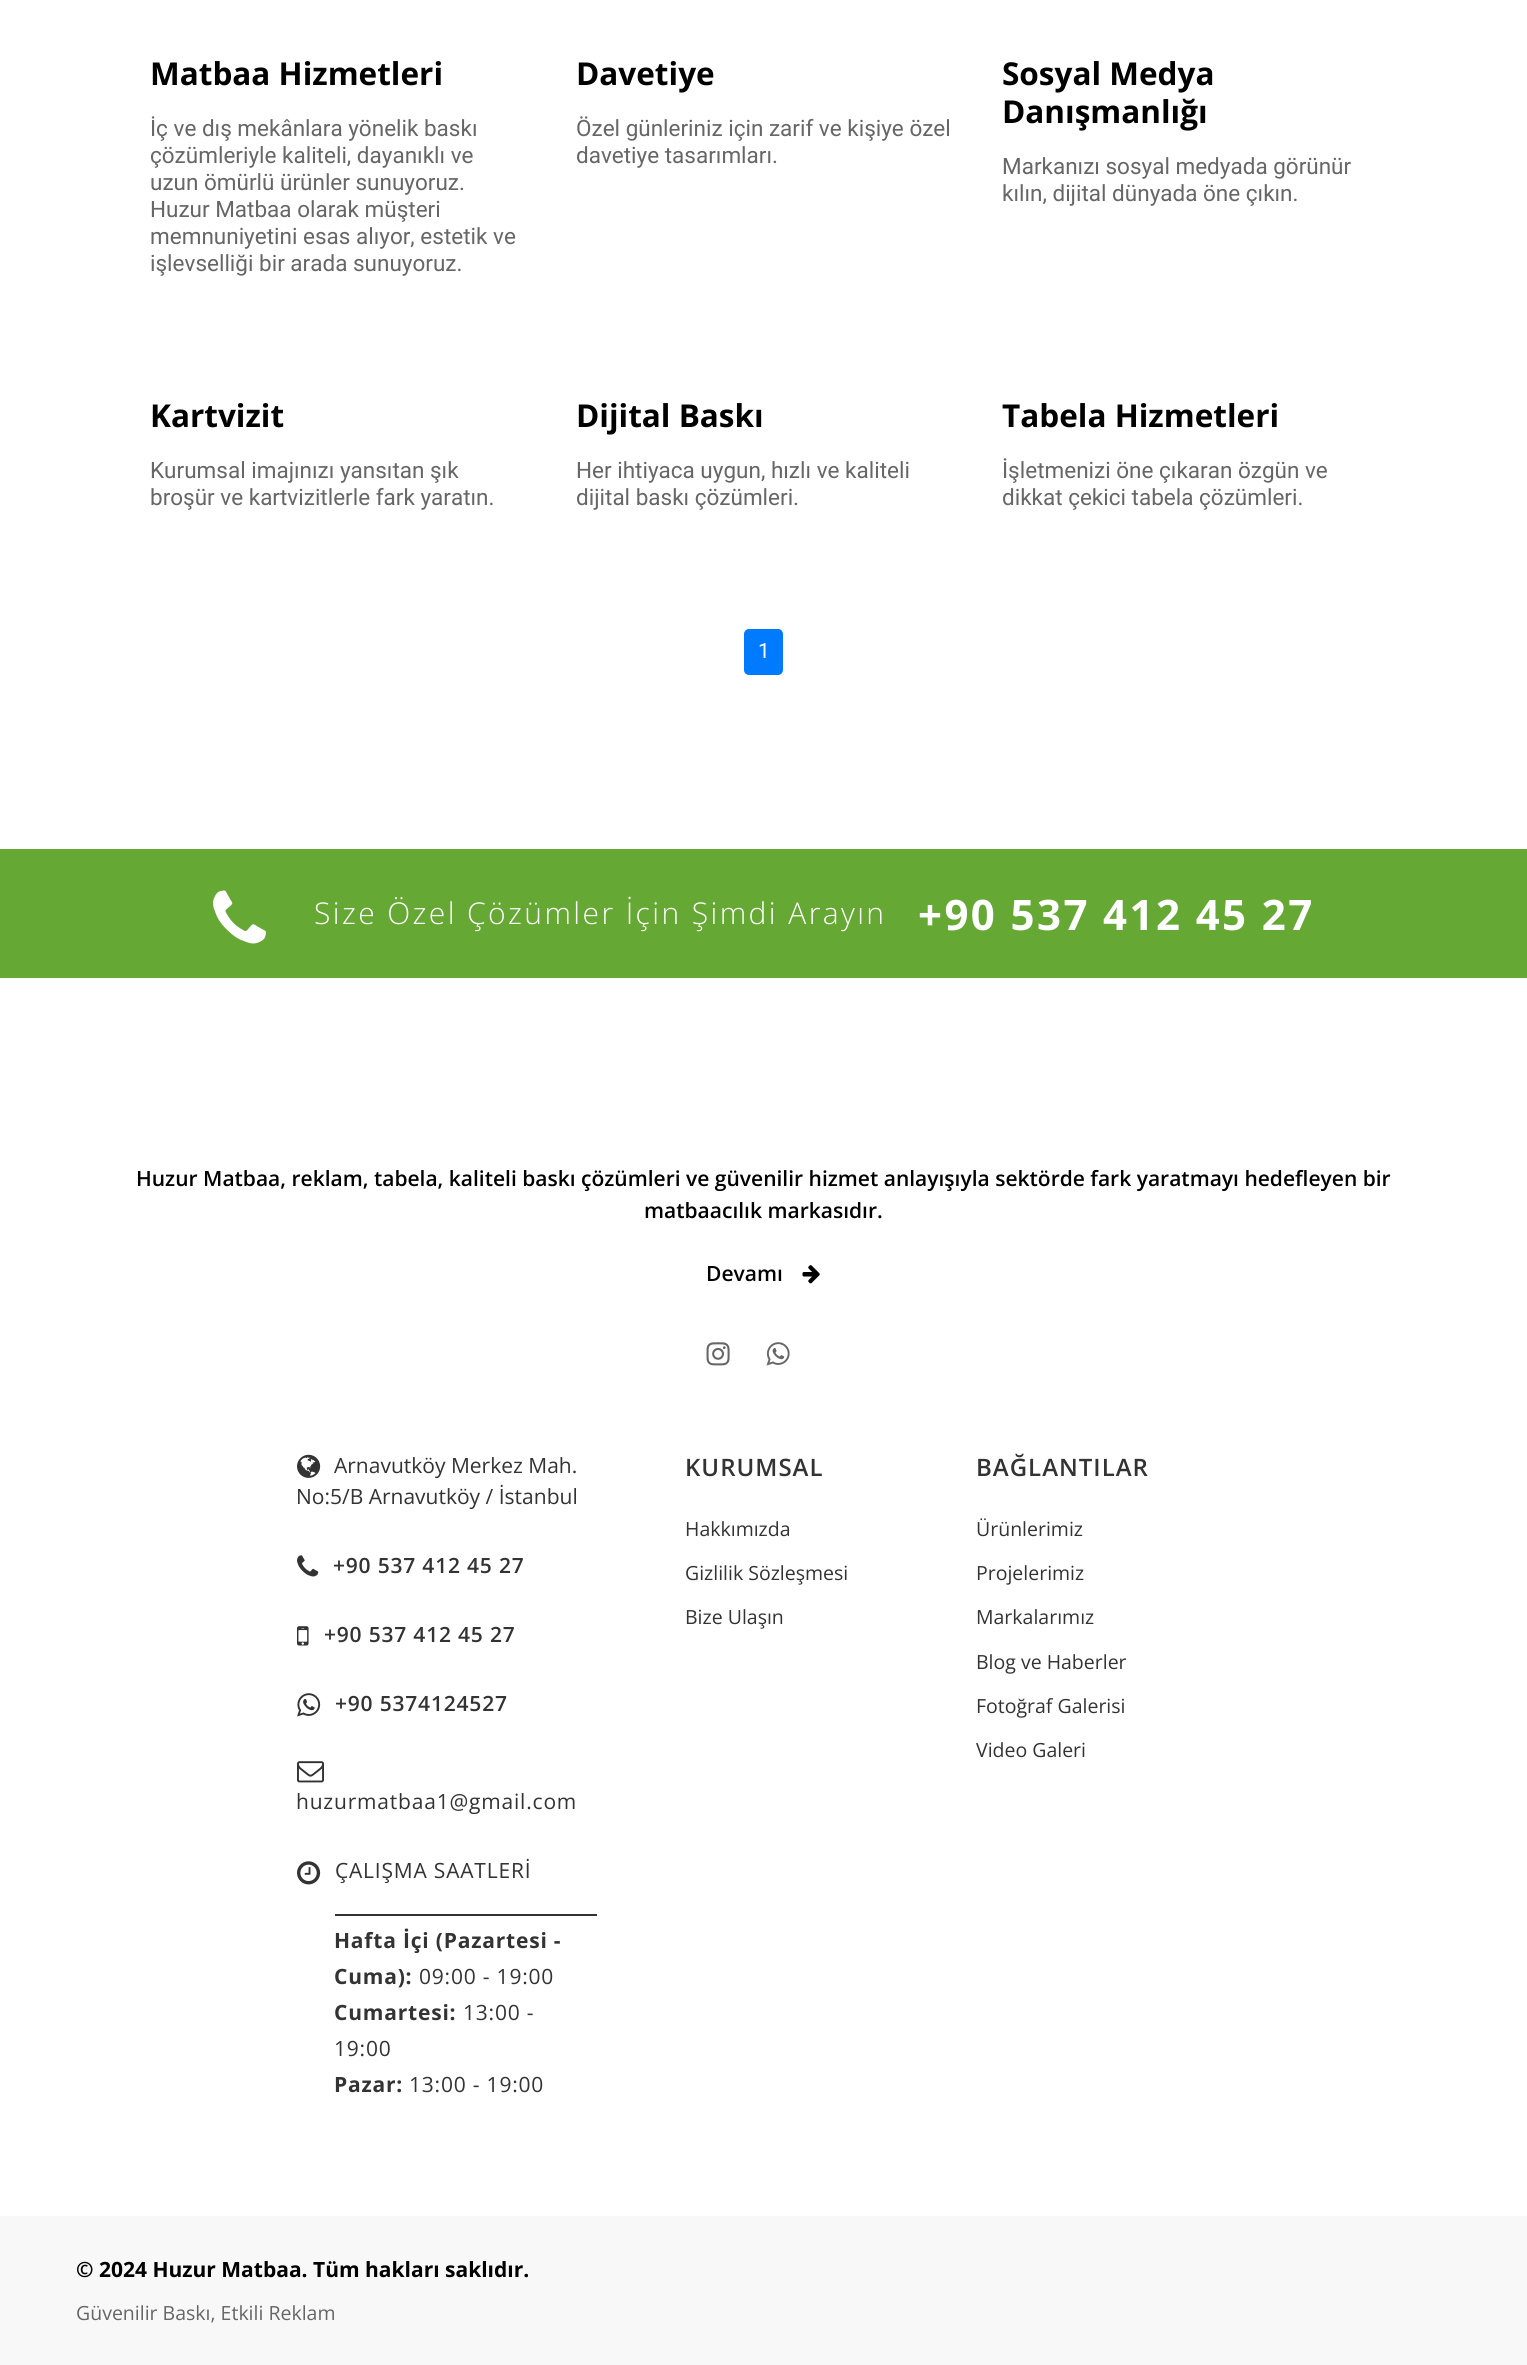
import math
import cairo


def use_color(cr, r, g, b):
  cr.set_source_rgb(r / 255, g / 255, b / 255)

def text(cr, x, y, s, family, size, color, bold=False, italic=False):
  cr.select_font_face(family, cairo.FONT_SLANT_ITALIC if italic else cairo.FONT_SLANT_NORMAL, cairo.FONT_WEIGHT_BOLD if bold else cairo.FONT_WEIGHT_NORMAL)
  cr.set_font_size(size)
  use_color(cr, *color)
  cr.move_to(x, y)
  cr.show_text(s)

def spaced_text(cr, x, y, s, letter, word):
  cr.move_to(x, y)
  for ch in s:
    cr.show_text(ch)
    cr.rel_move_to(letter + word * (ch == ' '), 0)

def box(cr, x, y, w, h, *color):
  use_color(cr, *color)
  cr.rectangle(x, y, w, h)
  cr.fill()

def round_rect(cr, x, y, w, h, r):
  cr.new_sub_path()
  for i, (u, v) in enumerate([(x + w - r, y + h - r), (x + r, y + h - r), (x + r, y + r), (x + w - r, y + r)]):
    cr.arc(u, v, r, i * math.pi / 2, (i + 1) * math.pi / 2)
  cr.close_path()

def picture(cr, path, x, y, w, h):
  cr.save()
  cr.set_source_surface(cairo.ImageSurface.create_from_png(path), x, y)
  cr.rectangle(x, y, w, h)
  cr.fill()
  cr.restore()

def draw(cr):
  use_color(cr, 255, 255, 255)
  cr.paint()
  use_color(cr, 0, 123, 255)
  round_rect(cr, 745, 630, 37, 44, 4)
  cr.fill_preserve()
  cr.stroke()
  box(cr, 0, 849, 1527, 129, 101, 168, 51)
  picture(cr, "img_01.png", 213, 890, 53, 54)
  picture(cr, "img_02.png", 802, 1265, 18, 19)
  picture(cr, "img_03.png", 706, 1342, 24, 24)
  picture(cr, "img_04.png", 766, 1342, 24, 24)
  picture(cr, "img_05.png", 297, 1454, 24, 24)
  picture(cr, "img_06.png", 297, 1555, 22, 22)
  picture(cr, "img_07.png", 297, 1626, 12, 20)
  picture(cr, "img_08.png", 297, 1693, 24, 24)
  picture(cr, "img_09.png", 297, 1761, 27, 22)
  picture(cr, "img_10.png", 297, 1861, 24, 24)
  box(cr, 335, 1914, 262, 2, 51, 51, 51)
  box(cr, 0, 2216, 1527, 149, 248, 248, 248)
  text(cr, 150, 85, "Matbaa Hizmetleri", "Open Sans", 31.5, (0, 0, 0), bold=True)
  text(cr, 150, 136, "İç ve dış mekânlara yönelik baskı", "Roboto", 22.5, (102, 102, 102))
  text(cr, 150, 163, "çözümleriyle kaliteli, dayanıklı ve", "Roboto", 22.5, (102, 102, 102))
  text(cr, 150, 190, "uzun ömürlü ürünler sunuyoruz.", "Roboto", 22.5, (102, 102, 102))
  text(cr, 150, 217, "Huzur Matbaa olarak müşteri", "Roboto", 22.5, (102, 102, 102))
  text(cr, 150, 244, "memnuniyetini esas alıyor, estetik ve", "Roboto", 22.5, (102, 102, 102))
  text(cr, 150, 271, "işlevselliği bir arada sunuyoruz.", "Roboto", 22.5, (102, 102, 102))
  text(cr, 576, 85, "Davetiye", "Open Sans", 31.5, (0, 0, 0), bold=True)
  text(cr, 576, 136, "Özel günleriniz için zarif ve kişiye özel", "Roboto", 22.5, (102, 102, 102))
  text(cr, 576, 163, "davetiye tasarımları.", "Roboto", 22.5, (102, 102, 102))
  text(cr, 1002, 85, "Sosyal Medya", "Open Sans", 31.5, (0, 0, 0), bold=True)
  text(cr, 1002, 123, "Danışmanlığı", "Open Sans", 31.5, (0, 0, 0), bold=True)
  text(cr, 1002, 174, "Markanızı sosyal medyada görünür", "Roboto", 22.5, (102, 102, 102))
  text(cr, 1002, 201, "kılın, dijital dünyada öne çıkın.", "Roboto", 22.5, (102, 102, 102))
  text(cr, 150, 427, "Kartvizit", "Open Sans", 31.5, (0, 0, 0), bold=True)
  text(cr, 150, 478, "Kurumsal imajınızı yansıtan şık", "Roboto", 22.5, (102, 102, 102))
  text(cr, 150, 505, "broşür ve kartvizitlerle fark yaratın.", "Roboto", 22.5, (102, 102, 102))
  text(cr, 576, 427, "Dijital Baskı", "Open Sans", 31.5, (0, 0, 0), bold=True)
  text(cr, 576, 478, "Her ihtiyaca uygun, hızlı ve kaliteli", "Roboto", 22.5, (102, 102, 102))
  text(cr, 576, 505, "dijital baskı çözümleri.", "Roboto", 22.5, (102, 102, 102))
  text(cr, 1002, 427, "Tabela Hizmetleri", "Open Sans", 31.5, (0, 0, 0), bold=True)
  text(cr, 1002, 478, "İşletmenizi öne çıkaran özgün ve", "Roboto", 22.5, (102, 102, 102))
  text(cr, 1002, 505, "dikkat çekici tabela çözümleri.", "Roboto", 22.5, (102, 102, 102))
  text(cr, 758, 658, "1", "Roboto", 21, (255, 255, 255))
  cr.select_font_face("Open Sans Light")
  cr.set_font_size(30)
  spaced_text(cr, 314, 924, "Size Özel Çözümler İçin Şimdi Arayın", 2.4, 0)
  cr.select_font_face("Open Sans", cairo.FONT_SLANT_NORMAL, cairo.FONT_WEIGHT_BOLD)
  cr.set_font_size(42)
  spaced_text(cr, 918, 930, "+90 537 412 45 27", 2.4, 0)
  text(cr, 136, 1186, "Huzur Matbaa, reklam, tabela, kaliteli baskı çözümleri ve güvenilir hizmet anlayışıyla sektörde fark yaratmayı hedefleyen bir", "Open Sans SemiBold", 21, (0, 0, 0))
  text(cr, 644, 1218, "matbaacılık markasıdır.", "Open Sans SemiBold", 21, (0, 0, 0))
  text(cr, 706, 1281, "Devamı", "Open Sans SemiBold", 21, (0, 0, 0))
  text(cr, 334, 1473, "Arnavutköy Merkez Mah.", "Open Sans", 21, (51, 51, 51))
  text(cr, 296, 1504, "No:5/B Arnavutköy / İstanbul", "Open Sans", 21, (51, 51, 51))
  cr.select_font_face("Open Sans SemiBold")
  spaced_text(cr, 333, 1573, "+90 537 412 45 27", 0.8, 0)
  spaced_text(cr, 324, 1642, "+90 537 412 45 27", 0.8, 0)
  spaced_text(cr, 335, 1711, "+90 5374124527", 0.8, 0)
  cr.select_font_face("Open Sans")
  spaced_text(cr, 296, 1809, "huzurmatbaa1@gmail.com", 0.8, 0)
  spaced_text(cr, 335, 1878, "ÇALIŞMA SAATLERİ", 0.8, 0)
  cr.select_font_face("Open Sans", cairo.FONT_SLANT_NORMAL, cairo.FONT_WEIGHT_BOLD)
  spaced_text(cr, 334, 1948, "Hafta İçi (Pazartesi -", 0.8, 0)
  spaced_text(cr, 334, 1984, "Cuma):", 0.8, 0)
  cr.select_font_face("Open Sans")
  spaced_text(cr, 419, 1984, "09:00 - 19:00", 0.8, 0)
  cr.select_font_face("Open Sans", cairo.FONT_SLANT_NORMAL, cairo.FONT_WEIGHT_BOLD)
  spaced_text(cr, 334, 2020, "Cumartesi:", 0.8, 0)
  cr.select_font_face("Open Sans")
  spaced_text(cr, 463, 2020, "13:00 -", 0.8, 0)
  spaced_text(cr, 334, 2056, "19:00", 0.8, 0)
  cr.select_font_face("Open Sans", cairo.FONT_SLANT_NORMAL, cairo.FONT_WEIGHT_BOLD)
  spaced_text(cr, 334, 2092, "Pazar:", 0.8, 0)
  cr.select_font_face("Open Sans")
  spaced_text(cr, 409, 2092, "13:00 - 19:00", 0.8, 0)
  cr.select_font_face("Open Sans SemiBold")
  cr.set_font_size(24)
  spaced_text(cr, 685, 1476, "KURUMSAL", 1, 0)
  text(cr, 685, 1536, "Hakkımızda", "Open Sans", 19.5, (51, 51, 51))
  text(cr, 685, 1580, "Gizlilik Sözleşmesi", "Open Sans", 19.5, (51, 51, 51))
  text(cr, 685, 1624, "Bize Ulaşın", "Open Sans", 19.5, (51, 51, 51))
  cr.select_font_face("Open Sans SemiBold")
  cr.set_font_size(24)
  spaced_text(cr, 976, 1476, "BAĞLANTILAR", 1, 0)
  text(cr, 976, 1536, "Ürünlerimiz", "Open Sans", 19.5, (51, 51, 51))
  text(cr, 976, 1580, "Projelerimiz", "Open Sans", 19.5, (51, 51, 51))
  text(cr, 976, 1624, "Markalarımız", "Open Sans", 19.5, (51, 51, 51))
  text(cr, 976, 1669, "Blog ve Haberler", "Open Sans", 19.5, (51, 51, 51))
  text(cr, 976, 1713, "Fotoğraf Galerisi", "Open Sans", 19.5, (51, 51, 51))
  text(cr, 976, 1757, "Video Galeri", "Open Sans", 19.5, (51, 51, 51))
  text(cr, 76, 2277, "© 2024 Huzur Matbaa. Tüm hakları saklıdır.", "Open Sans", 21, (0, 0, 0), bold=True)
  text(cr, 76, 2320, "Güvenilir Baskı, Etkili Reklam", "Open Sans", 19.5, (102, 102, 102))


surface = cairo.ImageSurface(cairo.FORMAT_RGB24, 1527, 2365)
cr = cairo.Context(surface)
options = cairo.FontOptions()
options.set_hint_metrics(cairo.HINT_METRICS_OFF)
options.set_hint_style(cairo.HINT_STYLE_NONE)
cr.set_font_options(options)
cr.set_miter_limit(4)
draw(cr)
surface.write_to_png("out.png")
